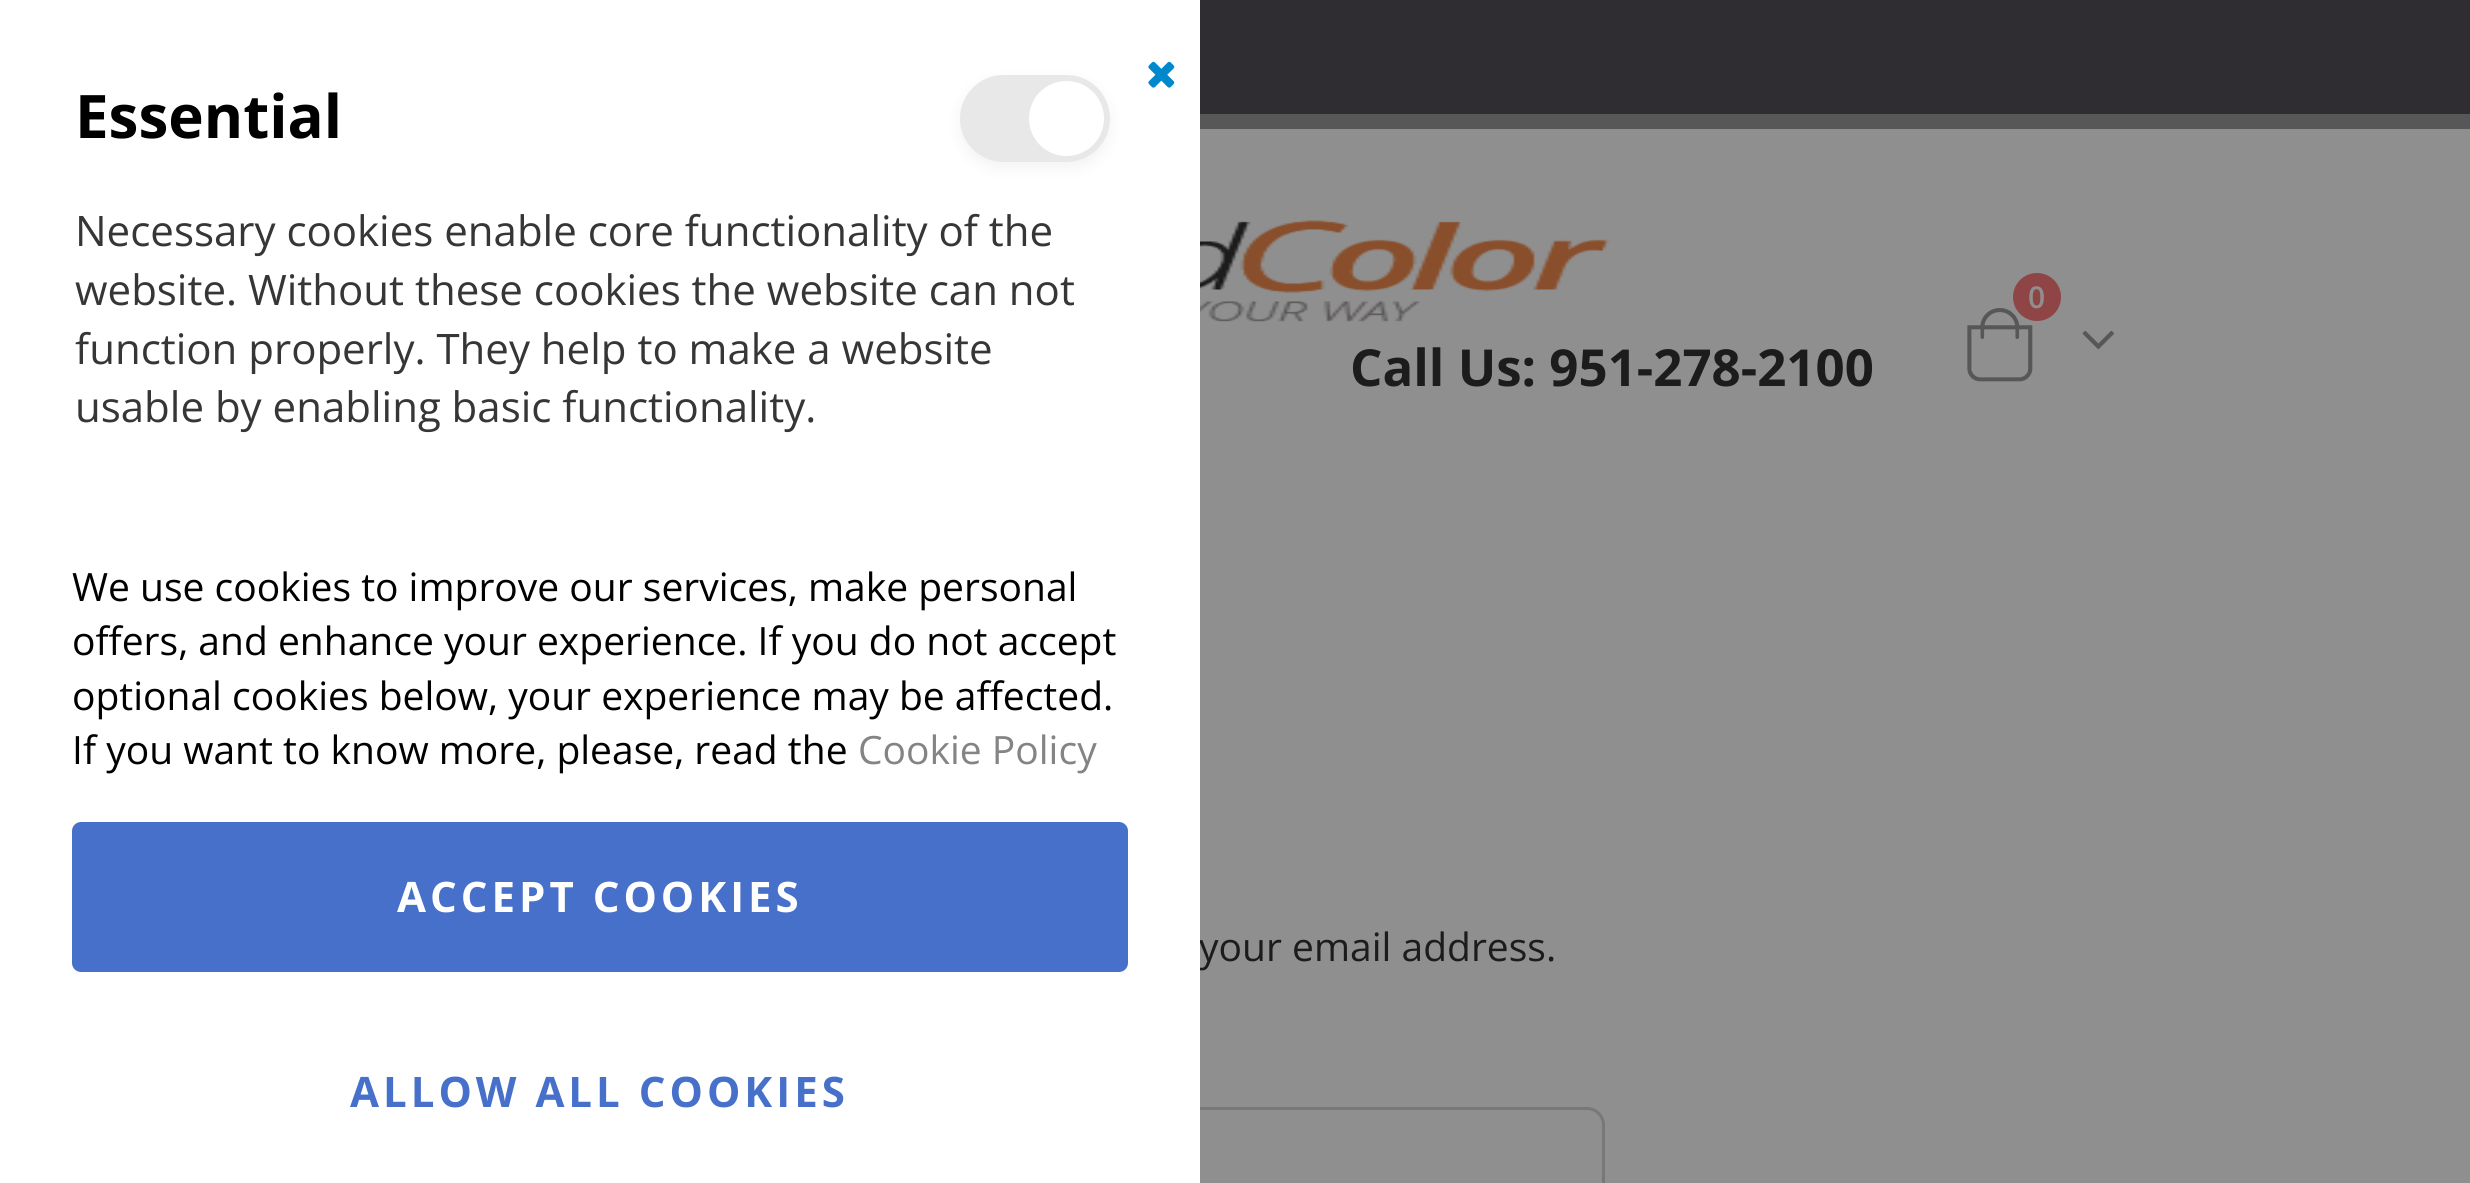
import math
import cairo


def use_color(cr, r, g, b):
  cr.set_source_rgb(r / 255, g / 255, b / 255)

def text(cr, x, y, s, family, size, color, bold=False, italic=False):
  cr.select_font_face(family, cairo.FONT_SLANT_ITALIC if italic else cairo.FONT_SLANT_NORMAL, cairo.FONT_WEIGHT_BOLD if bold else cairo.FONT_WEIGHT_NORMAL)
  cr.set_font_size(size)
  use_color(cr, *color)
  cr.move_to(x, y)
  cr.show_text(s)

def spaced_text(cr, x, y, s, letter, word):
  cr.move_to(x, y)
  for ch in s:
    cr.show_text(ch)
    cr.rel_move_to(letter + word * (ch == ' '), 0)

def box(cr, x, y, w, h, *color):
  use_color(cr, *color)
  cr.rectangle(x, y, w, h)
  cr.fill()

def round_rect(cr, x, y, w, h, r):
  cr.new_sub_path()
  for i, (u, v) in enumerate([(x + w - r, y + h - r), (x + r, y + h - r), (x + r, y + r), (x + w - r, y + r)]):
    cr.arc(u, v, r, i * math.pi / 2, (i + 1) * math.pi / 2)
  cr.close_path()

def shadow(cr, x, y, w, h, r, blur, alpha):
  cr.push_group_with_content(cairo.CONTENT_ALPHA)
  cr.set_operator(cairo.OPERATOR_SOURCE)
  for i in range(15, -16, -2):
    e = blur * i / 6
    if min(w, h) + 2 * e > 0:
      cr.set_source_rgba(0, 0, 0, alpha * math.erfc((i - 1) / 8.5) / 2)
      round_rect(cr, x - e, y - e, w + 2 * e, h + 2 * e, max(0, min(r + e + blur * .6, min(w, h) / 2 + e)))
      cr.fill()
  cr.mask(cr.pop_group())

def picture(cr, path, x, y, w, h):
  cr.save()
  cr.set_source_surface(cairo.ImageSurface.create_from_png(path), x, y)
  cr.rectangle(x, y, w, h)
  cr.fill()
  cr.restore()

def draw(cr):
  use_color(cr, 143, 143, 143)
  cr.paint()
  box(cr, 1200, 0, 1270, 114, 47, 45, 49)
  box(cr, 1200, 114, 1270, 15, 87, 87, 87)
  picture(cr, "img_02.png", 1200, 220, 410, 102)
  picture(cr, "img_03.png", 1967, 308, 66, 74)
  use_color(cr, 143, 69, 69)
  cr.arc(2037, 297, 24, 0, 2 * math.pi)
  cr.fill()
  picture(cr, "img_04.png", 2082, 330, 32, 20)
  round_rect(cr, 556.5, 1108.5, 1047, 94, 16.5)
  use_color(cr, 120, 120, 120)
  cr.set_line_width(3)
  cr.stroke()
  text(cr, 2028, 308, "0", "Open Sans SemiBold", 30, (143, 143, 143))
  text(cr, 1350, 386, "Call Us: 951-278-2100", "Open Sans", 51, (28, 28, 28), bold=True)
  text(cr, 1199, 961, "your email address.", "Open Sans", 39, (28, 28, 28))
  box(cr, 0, 0, 1200, 1183, 255, 255, 255)
  picture(cr, "img_01.png", 1148, 61, 27, 27)
  cr.select_font_face("Open Sans", cairo.FONT_SLANT_NORMAL, cairo.FONT_WEIGHT_BOLD)
  cr.set_font_size(42)
  use_color(cr, 70, 112, 201)
  spaced_text(cr, 350, 1107, "ALLOW ALL COOKIES", 4, 0)
  round_rect(cr, 72, 822, 1056, 150, 9)
  cr.fill()
  use_color(cr, 255, 255, 255)
  spaced_text(cr, 397, 912, "ACCEPT COOKIES", 4, 0)
  text(cr, 858, 764, "Cookie Policy", "Open Sans", 39, (132, 132, 132))
  text(cr, 72, 764, "If you want to know more, please, read the", "Open Sans", 39, (0, 0, 0))
  text(cr, 72, 710, "optional cookies below, your experience may be affected.", "Open Sans", 39, (0, 0, 0))
  text(cr, 72, 655, "offers, and enhance your experience. If you do not accept", "Open Sans", 39, (0, 0, 0))
  text(cr, 72, 601, "We use cookies to improve our services, make personal", "Open Sans", 39, (0, 0, 0))
  use_color(cr, 0, 0, 0)
  shadow(cr, 960, 81, 150, 87, 43.5, 7.5, 0.05)
  use_color(cr, 232, 232, 232)
  round_rect(cr, 960, 75, 150, 87, 43.5)
  cr.fill()
  use_color(cr, 255, 255, 255)
  cr.arc(1066.5, 118.5, 37.5, 0, 2 * math.pi)
  cr.fill()
  text(cr, 75, 422, "usable by enabling basic functionality.", "Open Sans", 42, (54, 54, 54))
  text(cr, 75, 364, "function properly. They help to make a website", "Open Sans", 42, (54, 54, 54))
  text(cr, 75, 305, "website. Without these cookies the website can not", "Open Sans", 42, (54, 54, 54))
  text(cr, 75, 246, "Necessary cookies enable core functionality of the", "Open Sans", 42, (54, 54, 54))
  text(cr, 75, 138, "Essential", "Open Sans", 60, (0, 0, 0), bold=True)


surface = cairo.ImageSurface(cairo.FORMAT_RGB24, 2470, 1183)
cr = cairo.Context(surface)
options = cairo.FontOptions()
options.set_hint_metrics(cairo.HINT_METRICS_OFF)
options.set_hint_style(cairo.HINT_STYLE_NONE)
cr.set_font_options(options)
cr.set_miter_limit(4)
draw(cr)
surface.write_to_png("out.png")
